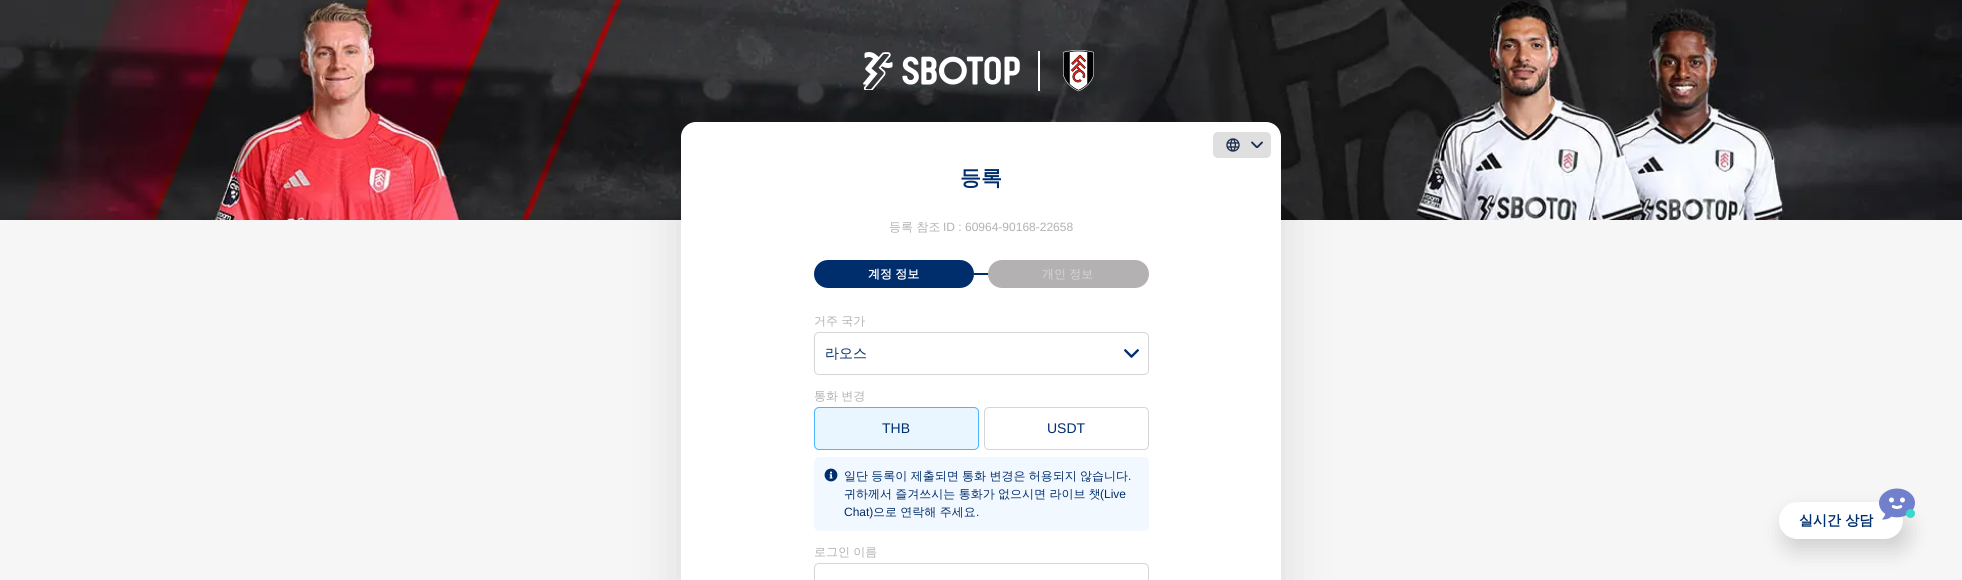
import math
import cairo


def use_color(cr, r, g, b):
  cr.set_source_rgb(r / 255, g / 255, b / 255)

def text(cr, x, y, s, family, size, color, bold=False, italic=False):
  cr.select_font_face(family, cairo.FONT_SLANT_ITALIC if italic else cairo.FONT_SLANT_NORMAL, cairo.FONT_WEIGHT_BOLD if bold else cairo.FONT_WEIGHT_NORMAL)
  cr.set_font_size(size)
  use_color(cr, *color)
  cr.move_to(x, y)
  cr.show_text(s)

def spaced_text(cr, x, y, s, letter, word):
  cr.move_to(x, y)
  for ch in s:
    cr.show_text(ch)
    cr.rel_move_to(letter + word * (ch == ' '), 0)

def box(cr, x, y, w, h, *color):
  use_color(cr, *color)
  cr.rectangle(x, y, w, h)
  cr.fill()

def round_rect(cr, x, y, w, h, r):
  cr.new_sub_path()
  for i, (u, v) in enumerate([(x + w - r, y + h - r), (x + r, y + h - r), (x + r, y + r), (x + w - r, y + r)]):
    cr.arc(u, v, r, i * math.pi / 2, (i + 1) * math.pi / 2)
  cr.close_path()

def shadow(cr, x, y, w, h, r, blur, alpha):
  cr.push_group_with_content(cairo.CONTENT_ALPHA)
  cr.set_operator(cairo.OPERATOR_SOURCE)
  for i in range(15, -16, -2):
    e = blur * i / 6
    if min(w, h) + 2 * e > 0:
      cr.set_source_rgba(0, 0, 0, alpha * math.erfc((i - 1) / 8.5) / 2)
      round_rect(cr, x - e, y - e, w + 2 * e, h + 2 * e, max(0, min(r + e + blur * .6, min(w, h) / 2 + e)))
      cr.fill()
  cr.mask(cr.pop_group())

def picture(cr, path, x, y, w, h):
  cr.save()
  cr.set_source_surface(cairo.ImageSurface.create_from_png(path), x, y)
  cr.rectangle(x, y, w, h)
  cr.fill()
  cr.restore()

def draw(cr):
  use_color(cr, 246, 246, 246)
  cr.paint()
  picture(cr, "img_01.png", 0, 0, 1962, 220)
  picture(cr, "img_02.png", 863, 52, 157, 38)
  box(cr, 1038, 51, 2, 40, 255, 255, 255)
  picture(cr, "img_03.png", 1063, 50, 31, 42)
  use_color(cr, 0, 0, 0)
  shadow(cr, 681, 133, 600, 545, 15, 27.5, 0.11)
  use_color(cr, 255, 255, 255)
  round_rect(cr, 681, 122, 600, 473, 15)
  cr.fill()
  use_color(cr, 223, 223, 223)
  round_rect(cr, 1213, 132, 58, 26, 5)
  cr.fill()
  picture(cr, "img_04.png", 1226, 138, 14, 14)
  picture(cr, "img_05.png", 1251, 141, 12, 7)
  use_color(cr, 0, 46, 108)
  round_rect(cr, 814, 260, 160, 28, 14)
  cr.fill()
  box(cr, 974, 273, 20, 2, 0, 46, 108)
  use_color(cr, 179, 177, 177)
  round_rect(cr, 988, 260, 161, 28, 14)
  cr.fill()
  round_rect(cr, 814.5, 332.5, 334, 42, 4.5)
  use_color(cr, 214, 214, 214)
  cr.set_line_width(1)
  cr.stroke()
  picture(cr, "img_06.png", 1124, 349, 15, 9)
  use_color(cr, 234, 246, 255)
  round_rect(cr, 814.5, 407.5, 164, 42, 4.5)
  cr.fill_preserve()
  use_color(cr, 77, 181, 255)
  cr.stroke()
  round_rect(cr, 984.5, 407.5, 164, 42, 4.5)
  use_color(cr, 214, 214, 214)
  cr.stroke()
  use_color(cr, 242, 248, 255)
  round_rect(cr, 814, 457, 335, 74, 5)
  cr.fill()
  picture(cr, "img_07.png", 824, 468, 14, 14)
  round_rect(cr, 814.5, 563.5, 334, 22, 4.5)
  use_color(cr, 214, 214, 214)
  cr.stroke()
  use_color(cr, 0, 0, 0)
  shadow(cr, 1784, 513, 124, 37, 18.5, 11, 0.16)
  use_color(cr, 255, 255, 255)
  round_rect(cr, 1779, 502, 124, 37, 18.5)
  cr.fill()
  picture(cr, "img_08.png", 1879, 488, 36, 32)
  text(cr, 960, 185, "등록", "WenQuanYi Zen Hei", 21, (0, 46, 108), bold=True)
  text(cr, 889, 231, "등록 참조", "WenQuanYi Zen Hei Medium", 12, (179, 177, 177))
  text(cr, 943, 231, "ID : 60964-90168-22658", "Liberation Sans", 12, (179, 177, 177))
  cr.select_font_face("WenQuanYi Zen Hei", cairo.FONT_SLANT_NORMAL, cairo.FONT_WEIGHT_BOLD)
  use_color(cr, 255, 255, 255)
  spaced_text(cr, 868, 278, "계정 정보", 0, -0.25)
  cr.select_font_face("WenQuanYi Zen Hei Medium")
  use_color(cr, 214, 214, 214)
  spaced_text(cr, 1042, 278, "개인 정보", 0, -0.25)
  use_color(cr, 179, 177, 177)
  spaced_text(cr, 814, 325, "거주 국가", 0, -0.25)
  text(cr, 825, 358, "라오스", "WenQuanYi Zen Hei Medium", 14, (0, 46, 108))
  cr.set_font_size(12)
  use_color(cr, 179, 177, 177)
  spaced_text(cr, 814, 400, "통화 변경", 0, -0.25)
  text(cr, 882, 433, "THB", "Liberation Sans", 14, (0, 46, 108))
  text(cr, 1047, 433, "USDT", "Liberation Sans", 14, (0, 46, 108))
  cr.select_font_face("WenQuanYi Zen Hei Medium")
  cr.set_font_size(12)
  spaced_text(cr, 844, 480, "일단 등록이 제출되면 통화 변경은 허용되지 않습니다", 0, -0.25)
  text(cr, 1128, 480, ".", "Liberation Sans", 12, (0, 46, 108))
  cr.select_font_face("WenQuanYi Zen Hei Medium")
  spaced_text(cr, 844, 498, "귀하께서 즐겨쓰시는 통화가 없으시면 라이브 챗", 0, -0.25)
  text(cr, 1100, 498, "(Live", "Liberation Sans", 12, (0, 46, 108))
  text(cr, 844, 516, "Chat)", "Liberation Sans", 12, (0, 46, 108))
  cr.select_font_face("WenQuanYi Zen Hei Medium")
  spaced_text(cr, 873, 516, "으로 연락해 주세요", 0, -0.25)
  text(cr, 976, 516, ".", "Liberation Sans", 12, (0, 46, 108))
  cr.select_font_face("WenQuanYi Zen Hei Medium")
  use_color(cr, 179, 177, 177)
  spaced_text(cr, 814, 556, "로그인 이름", 0, -0.25)
  text(cr, 1799, 525, "실시간 상담", "WenQuanYi Zen Hei", 14, (0, 46, 108), bold=True)


surface = cairo.ImageSurface(cairo.FORMAT_RGB24, 1962, 580)
cr = cairo.Context(surface)
options = cairo.FontOptions()
options.set_hint_metrics(cairo.HINT_METRICS_OFF)
options.set_hint_style(cairo.HINT_STYLE_NONE)
cr.set_font_options(options)
cr.set_miter_limit(4)
draw(cr)
surface.write_to_png("out.png")
